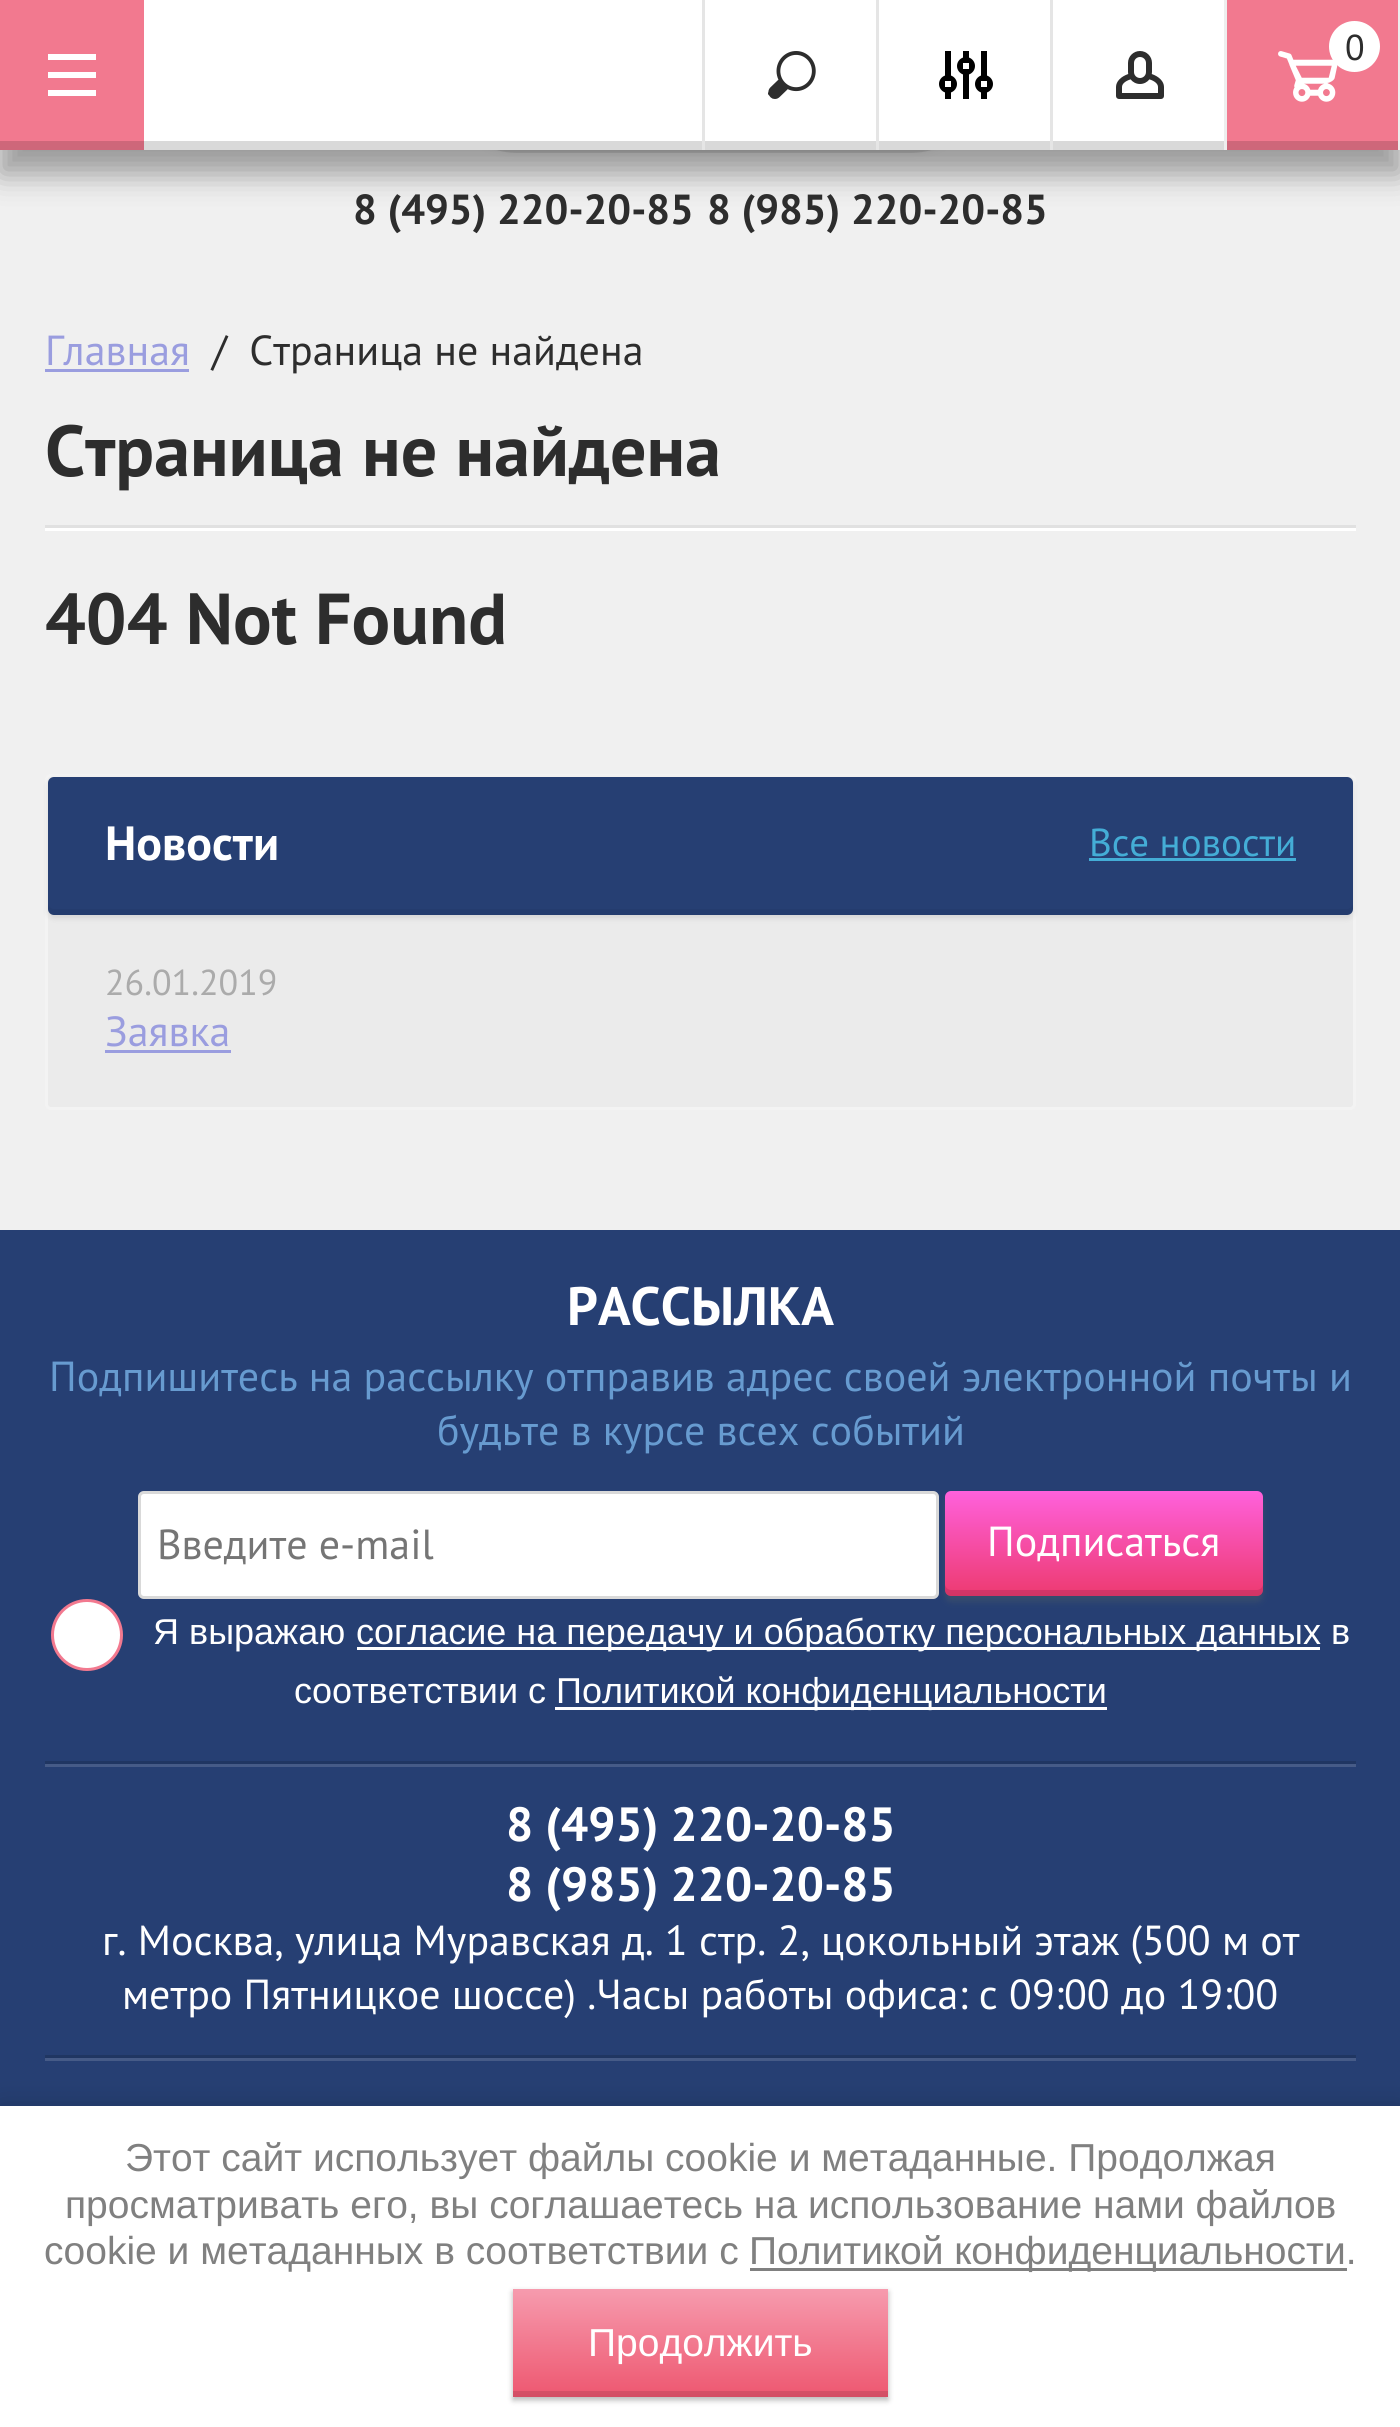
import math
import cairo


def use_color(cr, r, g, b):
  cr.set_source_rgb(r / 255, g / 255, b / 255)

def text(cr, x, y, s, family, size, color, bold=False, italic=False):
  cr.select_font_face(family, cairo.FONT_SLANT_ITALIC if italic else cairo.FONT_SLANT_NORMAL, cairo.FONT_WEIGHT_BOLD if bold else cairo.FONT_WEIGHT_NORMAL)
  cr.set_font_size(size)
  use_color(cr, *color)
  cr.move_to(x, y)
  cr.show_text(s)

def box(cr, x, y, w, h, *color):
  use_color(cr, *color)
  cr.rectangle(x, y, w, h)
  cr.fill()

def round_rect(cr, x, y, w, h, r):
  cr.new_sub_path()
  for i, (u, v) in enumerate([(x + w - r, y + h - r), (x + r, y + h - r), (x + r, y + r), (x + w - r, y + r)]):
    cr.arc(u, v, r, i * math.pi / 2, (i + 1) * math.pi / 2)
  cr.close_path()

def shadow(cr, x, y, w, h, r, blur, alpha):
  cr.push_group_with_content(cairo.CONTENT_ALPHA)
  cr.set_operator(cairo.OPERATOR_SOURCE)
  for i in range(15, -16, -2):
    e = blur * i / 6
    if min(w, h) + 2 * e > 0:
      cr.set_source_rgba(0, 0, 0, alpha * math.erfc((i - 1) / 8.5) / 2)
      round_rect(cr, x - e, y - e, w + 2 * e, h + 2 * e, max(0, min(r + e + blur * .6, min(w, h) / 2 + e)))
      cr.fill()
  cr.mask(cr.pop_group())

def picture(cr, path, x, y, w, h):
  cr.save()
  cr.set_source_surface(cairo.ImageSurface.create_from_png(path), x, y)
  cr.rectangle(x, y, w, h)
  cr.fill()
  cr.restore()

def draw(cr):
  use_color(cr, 240, 240, 240)
  cr.paint()
  use_color(cr, 0, 0, 0)
  shadow(cr, 462, 30, 504, 111, 55.5, 7.5, 0.55)
  round_rect(cr, 451.5, 10.5, 525, 132, 66)
  cr.set_source_rgba(0, 0, 0, 0.1)
  cr.set_line_width(21)
  cr.stroke()
  use_color(cr, 0, 0, 0)
  shadow(cr, 0, 24, 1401, 150, 0, 15, 0.36)
  box(cr, 144, 0, 1080, 141, 255, 255, 255)
  box(cr, 144, 141, 1080, 9, 217, 217, 217)
  box(cr, 0, 0, 144, 141, 242, 121, 143)
  box(cr, 0, 141, 144, 9, 206, 103, 122)
  use_color(cr, 255, 255, 255)
  cr.new_path()
  cr.move_to(48, 90)
  cr.line_to(96, 90)
  cr.line_to(96, 96)
  cr.line_to(48, 96)
  cr.close_path()
  cr.move_to(48, 72)
  cr.line_to(96, 72)
  cr.line_to(96, 78)
  cr.line_to(48, 78)
  cr.close_path()
  cr.move_to(48, 54)
  cr.line_to(96, 54)
  cr.line_to(96, 60)
  cr.line_to(48, 60)
  cr.close_path()
  cr.fill()
  box(cr, 1398, 0, 2, 150, 238, 238, 238)
  picture(cr, "img_01.png", 768, 51, 48, 48)
  box(cr, 702, 0, 3, 150, 229, 229, 229)
  box(cr, 876, 0, 3, 150, 229, 229, 229)
  picture(cr, "img_02.png", 939, 51, 54, 48)
  box(cr, 1050, 0, 3, 150, 229, 229, 229)
  picture(cr, "img_03.png", 1116, 51, 48, 48)
  box(cr, 1227, 0, 171, 141, 242, 121, 143)
  box(cr, 1227, 141, 171, 9, 206, 103, 122)
  box(cr, 1224, 0, 3, 150, 238, 238, 238)
  picture(cr, "img_04.png", 1278, 51, 60, 51)
  use_color(cr, 255, 255, 255)
  cr.arc(1354.5, 46.5, 25.5, 0, 2 * math.pi)
  cr.fill()
  box(cr, 45, 528, 1311, 3, 255, 255, 255)
  box(cr, 45, 369, 144, 3, 154, 157, 223)
  box(cr, 45, 525, 1311, 3, 225, 225, 225)
  use_color(cr, 235, 235, 235)
  round_rect(cr, 46.5, 775.5, 1308, 333, 4.5)
  cr.fill_preserve()
  use_color(cr, 243, 243, 243)
  cr.set_line_width(3)
  cr.stroke()
  use_color(cr, 0, 0, 0)
  shadow(cr, 48, 780, 1305, 138, 6, 3, 0.1)
  use_color(cr, 38, 63, 115)
  round_rect(cr, 48, 777, 1305, 138, 6)
  cr.fill()
  cr.set_source_rgba(0, 0, 0, 0.05)
  cr.new_path()
  cr.move_to(48, 903)
  cr.line_to(48, 909)
  cr.curve_to(48, 912, 51, 915, 54, 915)
  cr.line_to(1347, 915)
  cr.curve_to(1350, 915, 1353, 912, 1353, 909)
  cr.line_to(1353, 903)
  cr.curve_to(1353, 906, 1350, 909, 1347, 909)
  cr.line_to(54, 909)
  cr.curve_to(51, 909, 48, 906, 48, 903)
  cr.close_path()
  cr.fill()
  box(cr, 1089, 858, 207, 3, 68, 173, 214)
  box(cr, 105, 1050, 126, 3, 154, 157, 223)
  box(cr, 0, 1230, 1400, 876, 38, 63, 115)
  use_color(cr, 255, 255, 255)
  round_rect(cr, 138, 1491, 801, 108, 6)
  cr.fill()
  round_rect(cr, 139.5, 1492.5, 798, 105, 4.5)
  cr.set_source_rgba(0, 0, 0, 0.15)
  cr.stroke()
  use_color(cr, 104, 112, 93)
  shadow(cr, 945, 1497, 318, 105, 6, 3, 0.26)
  gradient = cairo.LinearGradient(1104, 1596, 1104, 1491)
  gradient.add_color_stop_rgba(0, 0.929, 0.227, 0.439, 1)
  gradient.add_color_stop_rgba(1, 1, 0.38, 0.863, 1)
  cr.set_source(gradient)
  round_rect(cr, 945, 1491, 318, 105, 6)
  cr.fill()
  cr.set_source_rgba(0, 0, 0, 0.11)
  cr.new_path()
  cr.move_to(945, 1584)
  cr.line_to(945, 1590)
  cr.curve_to(945, 1593, 948, 1596, 951, 1596)
  cr.line_to(1257, 1596)
  cr.curve_to(1260, 1596, 1263, 1593, 1263, 1590)
  cr.line_to(1263, 1584)
  cr.curve_to(1263, 1587, 1260, 1590, 1257, 1590)
  cr.line_to(951, 1590)
  cr.curve_to(948, 1590, 945, 1587, 945, 1584)
  cr.close_path()
  cr.fill()
  use_color(cr, 255, 255, 255)
  cr.arc(87, 1635, 34.5, 0, 2 * math.pi)
  cr.fill_preserve()
  use_color(cr, 242, 121, 143)
  cr.stroke()
  box(cr, 357, 1647, 963, 3, 255, 255, 255)
  box(cr, 555, 1707, 552, 3, 255, 255, 255)
  box(cr, 45, 1761, 1311, 3, 32, 54, 98)
  box(cr, 45, 1764, 1311, 3, 70, 91, 135)
  box(cr, 45, 2055, 1311, 3, 32, 54, 98)
  box(cr, 45, 2058, 1311, 3, 70, 91, 135)
  use_color(cr, 0, 0, 0)
  shadow(cr, 0, 2109, 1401, 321, 0, 15, 0.23)
  box(cr, 0, 2106, 1400, 321, 255, 255, 255)
  box(cr, 750, 2268, 597, 3, 128, 128, 128)
  use_color(cr, 0, 0, 0)
  shadow(cr, 513, 2292, 375, 108, 0, 3, 0.29)
  gradient = cairo.LinearGradient(701, 2397, 701, 2289)
  gradient.add_color_stop_rgba(0, 0.933, 0.341, 0.439, 1)
  gradient.add_color_stop_rgba(1, 0.965, 0.608, 0.682, 1)
  cr.set_source(gradient)
  cr.rectangle(513, 2289, 375, 102)
  cr.fill()
  gradient = cairo.LinearGradient(701, 2397, 701, 2289)
  gradient.add_color_stop_rgba(0, 0.831, 0.302, 0.392, 1)
  gradient.add_color_stop_rgba(1, 0.859, 0.541, 0.608, 1)
  cr.set_source(gradient)
  cr.rectangle(513, 2391, 375, 6)
  cr.fill()
  text(cr, 1345, 60, "0", "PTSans", 36, (45, 45, 45))
  text(cr, 353, 224, "8 (495) 220-20-85", "PTSans", 42, (45, 45, 45), bold=True)
  text(cr, 707, 224, "8 (985) 220-20-85", "PTSans", 42, (45, 45, 45), bold=True)
  text(cr, 45, 365, "Главная", "PTSans", 42, (154, 157, 223))
  text(cr, 212, 365, "/  Страница не найдена", "PTSans", 42, (45, 45, 45))
  text(cr, 45, 476, "Страница не найдена", "PTSans", 72, (45, 45, 45), bold=True)
  text(cr, 45, 644, "404 Not Found", "PTSans", 72, (45, 45, 45), bold=True)
  text(cr, 105, 860, "Новости", "PTSans", 48, (255, 255, 255), bold=True)
  text(cr, 1089, 856, "Все новости", "PTSans", 39, (68, 173, 214))
  text(cr, 105, 995, "26.01.2019", "PTSans", 36, (171, 171, 171))
  text(cr, 105, 1046, "Заявка", "PTSans", 42, (154, 157, 223))
  text(cr, 567, 1325, "РАССЫЛКА", "PTSans", 54, (255, 255, 255), bold=True)
  text(cr, 49, 1391, "Подпишитесь на рассылку отправив адрес своей электронной почты и", "PTSans", 42, (103, 155, 208))
  text(cr, 437, 1445, "будьте в курсе всех событий", "PTSans", 42, (103, 155, 208))
  text(cr, 157, 1559, "Введите e-mail", "PTSans", 42, (117, 117, 117))
  text(cr, 987, 1556, "Подписаться", "PTSans", 42, (255, 255, 255))
  text(cr, 153, 1644, "Я выражаю", "Liberation Sans", 36, (255, 255, 255))
  text(cr, 356, 1644, "согласие на передачу и обработку персональных данных в", "Liberation Sans", 36, (255, 255, 255))
  text(cr, 294, 1703, "соответствии с", "Liberation Sans", 36, (255, 255, 255))
  text(cr, 556, 1703, "Политикой конфиденциальности", "Liberation Sans", 36, (255, 255, 255))
  text(cr, 506, 1841, "8 (495) 220-20-85", "PTSans", 48, (255, 255, 255), bold=True)
  text(cr, 506, 1901, "8 (985) 220-20-85", "PTSans", 48, (255, 255, 255), bold=True)
  text(cr, 102, 1955, "г. Москва, улица Муравская д. 1 стр. 2, цокольный этаж (500 м от", "PTSans", 42, (255, 255, 255))
  text(cr, 122, 2009, "метро Пятницкое шоссе) .Часы работы офиса: с 09:00 до 19:00", "PTSans", 42, (255, 255, 255))
  text(cr, 125, 2171, "Этот сайт использует файлы cookie и метаданные. Продолжая", "Liberation Sans", 39, (128, 128, 128))
  text(cr, 65, 2218, "просматривать его, вы соглашаетесь на использование нами файлов", "Liberation Sans", 39, (128, 128, 128))
  text(cr, 44, 2264, "cookie и метаданных в соответствии с", "Liberation Sans", 39, (128, 128, 128))
  text(cr, 749, 2264, "Политикой конфиденциальности.", "Liberation Sans", 39, (128, 128, 128))
  text(cr, 588, 2356, "Продолжить", "Liberation Sans", 39, (255, 255, 255))


surface = cairo.ImageSurface(cairo.FORMAT_RGB24, 1400, 2427)
cr = cairo.Context(surface)
options = cairo.FontOptions()
options.set_hint_metrics(cairo.HINT_METRICS_OFF)
options.set_hint_style(cairo.HINT_STYLE_NONE)
cr.set_font_options(options)
cr.set_miter_limit(4)
draw(cr)
surface.write_to_png("out.png")
